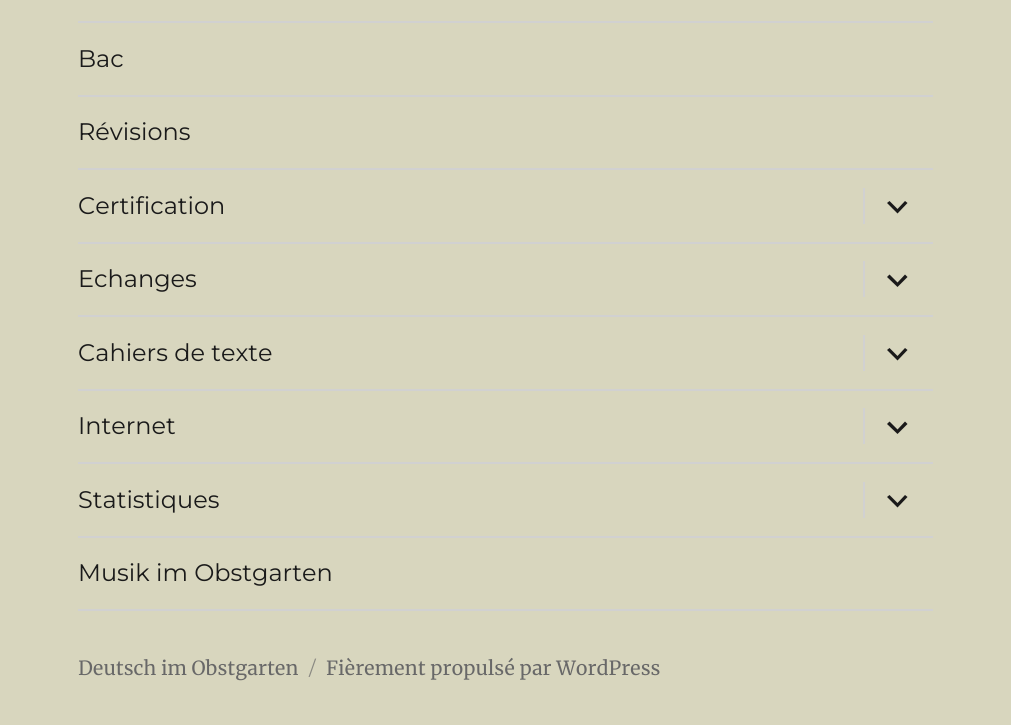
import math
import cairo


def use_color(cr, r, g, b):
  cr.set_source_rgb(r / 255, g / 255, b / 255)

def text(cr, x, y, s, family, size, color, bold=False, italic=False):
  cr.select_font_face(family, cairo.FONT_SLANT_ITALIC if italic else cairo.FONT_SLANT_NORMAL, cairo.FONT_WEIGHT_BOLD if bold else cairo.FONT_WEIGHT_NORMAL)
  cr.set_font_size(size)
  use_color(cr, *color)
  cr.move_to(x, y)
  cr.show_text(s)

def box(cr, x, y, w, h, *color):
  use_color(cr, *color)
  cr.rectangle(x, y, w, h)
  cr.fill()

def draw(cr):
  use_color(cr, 216, 214, 190)
  cr.paint()
  box(cr, 78, 609, 855, 2, 209, 209, 209)
  box(cr, 78, 21, 855, 2, 209, 209, 209)
  box(cr, 78, 95, 855, 2, 209, 209, 209)
  box(cr, 78, 168, 855, 2, 209, 209, 209)
  box(cr, 863, 188, 2, 36, 209, 209, 209)
  use_color(cr, 26, 26, 26)
  cr.new_path()
  cr.move_to(905, 201)
  cr.line_to(907.5, 203)
  cr.line_to(897.5, 213.5)
  cr.line_to(887, 203)
  cr.line_to(889.5, 201)
  cr.line_to(897.5, 209)
  cr.close_path()
  cr.fill()
  box(cr, 78, 242, 855, 2, 209, 209, 209)
  box(cr, 863, 261, 2, 36, 209, 209, 209)
  use_color(cr, 26, 26, 26)
  cr.new_path()
  cr.move_to(905, 274.5)
  cr.line_to(907.5, 277)
  cr.line_to(897.5, 287)
  cr.line_to(887, 277)
  cr.line_to(889.5, 274.5)
  cr.line_to(897.5, 282.5)
  cr.close_path()
  cr.fill()
  box(cr, 78, 315, 855, 2, 209, 209, 209)
  box(cr, 863, 335, 2, 36, 209, 209, 209)
  use_color(cr, 26, 26, 26)
  cr.new_path()
  cr.move_to(905, 348)
  cr.line_to(907.5, 350)
  cr.line_to(897.5, 360.5)
  cr.line_to(887, 350)
  cr.line_to(889.5, 348)
  cr.line_to(897.5, 356)
  cr.close_path()
  cr.fill()
  box(cr, 78, 389, 855, 2, 209, 209, 209)
  box(cr, 863, 408, 2, 36, 209, 209, 209)
  use_color(cr, 26, 26, 26)
  cr.new_path()
  cr.move_to(905, 421.5)
  cr.line_to(907.5, 424)
  cr.line_to(897.5, 434)
  cr.line_to(887, 424)
  cr.line_to(889.5, 421.5)
  cr.line_to(897.5, 429.5)
  cr.close_path()
  cr.fill()
  box(cr, 78, 462, 855, 2, 209, 209, 209)
  box(cr, 863, 482, 2, 36, 209, 209, 209)
  use_color(cr, 26, 26, 26)
  cr.new_path()
  cr.move_to(905, 495)
  cr.line_to(907.5, 497)
  cr.line_to(897.5, 507.5)
  cr.line_to(887, 497)
  cr.line_to(889.5, 495)
  cr.line_to(897.5, 503)
  cr.close_path()
  cr.fill()
  box(cr, 78, 536, 855, 2, 209, 209, 209)
  text(cr, 78, 67, "Bac", "Montserrat Thin", 24, (26, 26, 26))
  text(cr, 78, 140, "Révisions", "Montserrat Thin", 24, (26, 26, 26))
  text(cr, 78, 214, "Certification", "Montserrat Thin", 24, (26, 26, 26))
  text(cr, 78, 287, "Echanges", "Montserrat Thin", 24, (26, 26, 26))
  text(cr, 78, 361, "Cahiers de texte", "Montserrat Thin", 24, (26, 26, 26))
  text(cr, 78, 434, "Internet", "Montserrat Thin", 24, (26, 26, 26))
  text(cr, 78, 508, "Statistiques", "Montserrat Thin", 24, (26, 26, 26))
  text(cr, 78, 581, "Musik im Obstgarten", "Montserrat Thin", 24, (26, 26, 26))
  text(cr, 78, 675, "Deutsch im Obstgarten", "Merriweather", 19.5, (104, 104, 104))
  text(cr, 309, 675, "/", "Montserrat Thin", 19.5, (138, 137, 130))
  text(cr, 326, 675, "Fièrement propulsé par WordPress", "Merriweather", 19.5, (104, 104, 104))


surface = cairo.ImageSurface(cairo.FORMAT_RGB24, 1011, 725)
cr = cairo.Context(surface)
options = cairo.FontOptions()
options.set_hint_metrics(cairo.HINT_METRICS_OFF)
options.set_hint_style(cairo.HINT_STYLE_NONE)
cr.set_font_options(options)
cr.set_miter_limit(4)
draw(cr)
surface.write_to_png("out.png")
